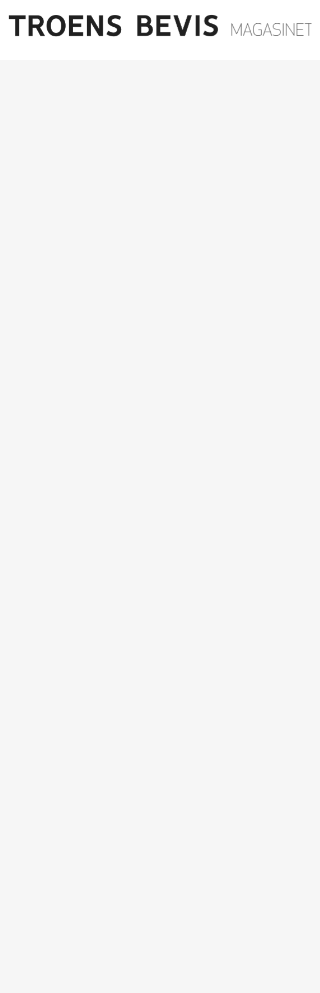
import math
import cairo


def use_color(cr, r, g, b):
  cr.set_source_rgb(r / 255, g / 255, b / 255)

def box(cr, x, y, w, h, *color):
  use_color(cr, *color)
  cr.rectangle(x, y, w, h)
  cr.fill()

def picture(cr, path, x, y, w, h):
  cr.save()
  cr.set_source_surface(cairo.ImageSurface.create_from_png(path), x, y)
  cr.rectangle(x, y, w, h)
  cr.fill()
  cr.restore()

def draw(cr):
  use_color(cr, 246, 246, 246)
  cr.paint()
  box(cr, 0, 0, 320, 60, 255, 255, 255)
  picture(cr, "img_01.png", 8, 14, 304, 23)


surface = cairo.ImageSurface(cairo.FORMAT_RGB24, 320, 993)
cr = cairo.Context(surface)
options = cairo.FontOptions()
options.set_hint_metrics(cairo.HINT_METRICS_OFF)
options.set_hint_style(cairo.HINT_STYLE_NONE)
cr.set_font_options(options)
cr.set_miter_limit(4)
draw(cr)
surface.write_to_png("out.png")
